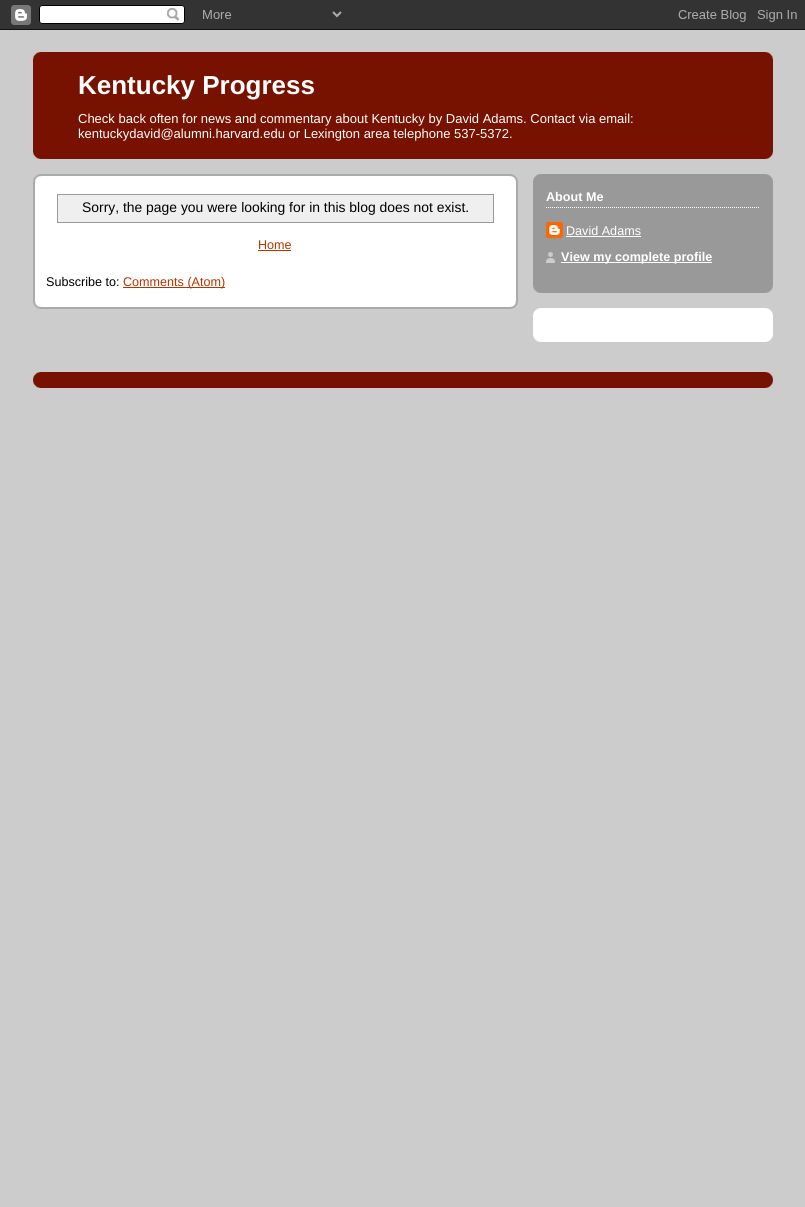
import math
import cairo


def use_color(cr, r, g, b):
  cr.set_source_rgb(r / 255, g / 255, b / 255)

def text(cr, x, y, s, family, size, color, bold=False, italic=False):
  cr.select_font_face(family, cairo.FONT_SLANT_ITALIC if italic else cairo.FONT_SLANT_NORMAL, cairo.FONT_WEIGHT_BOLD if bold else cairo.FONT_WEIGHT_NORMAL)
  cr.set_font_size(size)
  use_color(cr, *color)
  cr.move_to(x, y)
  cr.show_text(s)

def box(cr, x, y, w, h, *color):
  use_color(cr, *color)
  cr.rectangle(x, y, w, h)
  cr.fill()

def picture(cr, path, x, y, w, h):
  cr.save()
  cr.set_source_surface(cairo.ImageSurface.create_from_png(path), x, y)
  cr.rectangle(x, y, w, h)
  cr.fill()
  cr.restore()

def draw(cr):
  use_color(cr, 204, 204, 204)
  cr.paint()
  picture(cr, "img_01.png", 0, 0, 805, 30)
  box(cr, 33, 52, 740, 107, 119, 17, 0)
  picture(cr, "img_02.png", 33, 52, 740, 8)
  picture(cr, "img_03.png", 33, 151, 740, 8)
  box(cr, 35, 176, 481, 131, 255, 255, 255)
  picture(cr, "img_04.png", 33, 259, 485, 50)
  picture(cr, "img_05.png", 33, 174, 485, 50)
  picture(cr, "img_06.png", 33, 224, 485, 35)
  cr.rectangle(57.5, 194.5, 436, 28)
  use_color(cr, 153, 153, 153)
  cr.set_line_width(1)
  cr.stroke()
  box(cr, 58, 195, 435, 27, 239, 239, 239)
  box(cr, 258, 250, 33, 1, 187, 51, 0)
  box(cr, 123, 287, 102, 1, 187, 51, 0)
  box(cr, 533, 174, 240, 119, 153, 153, 153)
  picture(cr, "img_07.png", 533, 286, 240, 7)
  picture(cr, "img_08.png", 533, 174, 240, 7)
  cr.new_path()
  cr.move_to(546, 207.5)
  cr.line_to(760, 207.5)
  use_color(cr, 255, 255, 255)
  cr.set_dash([1, 1])
  cr.stroke()
  picture(cr, "img_09.png", 546, 222, 17, 16)
  box(cr, 566, 236, 75, 1, 255, 255, 255)
  picture(cr, "img_10.png", 546, 252, 9, 11)
  box(cr, 561, 262, 151, 1, 255, 255, 255)
  box(cr, 533, 308, 240, 34, 255, 255, 255)
  picture(cr, "img_11.png", 533, 308, 240, 7)
  picture(cr, "img_12.png", 533, 335, 240, 7)
  box(cr, 34, 372, 738, 16, 119, 17, 0)
  picture(cr, "img_02.png", 33, 372, 740, 8)
  picture(cr, "img_03.png", 33, 380, 740, 8)
  text(cr, 78, 94, "Kentucky Progress", "Liberation Sans", 26, (255, 255, 255), bold=True)
  text(cr, 78, 123, "Check back often for news and commentary about Kentucky by David Adams. Contact via email:", "Liberation Sans", 13, (255, 255, 255))
  text(cr, 78, 138, "kentuckydavid@alumni.harvard.edu or Lexington area telephone 537-5372.", "Liberation Sans", 13, (255, 255, 255))
  text(cr, 82, 212, "Sorry, the page you were looking for in this blog does not exist.", "Liberation Sans", 13.9, (0, 0, 0))
  text(cr, 258, 249, "Home", "Liberation Sans", 12.6, (187, 51, 0))
  text(cr, 46, 286, "Subscribe to:", "Liberation Sans", 12.6, (0, 0, 0))
  text(cr, 123, 286, "Comments (Atom)", "Liberation Sans", 12.6, (187, 51, 0))
  text(cr, 546, 201, "About Me", "Liberation Sans", 12.6, (255, 255, 255), bold=True)
  text(cr, 566, 235, "David Adams", "Liberation Sans", 12.6, (255, 255, 255))
  text(cr, 561, 261, "View my complete profile", "Liberation Sans", 12.6, (255, 255, 255), bold=True)


surface = cairo.ImageSurface(cairo.FORMAT_RGB24, 805, 1207)
cr = cairo.Context(surface)
options = cairo.FontOptions()
options.set_hint_metrics(cairo.HINT_METRICS_OFF)
options.set_hint_style(cairo.HINT_STYLE_NONE)
cr.set_font_options(options)
cr.set_miter_limit(4)
draw(cr)
surface.write_to_png("out.png")
